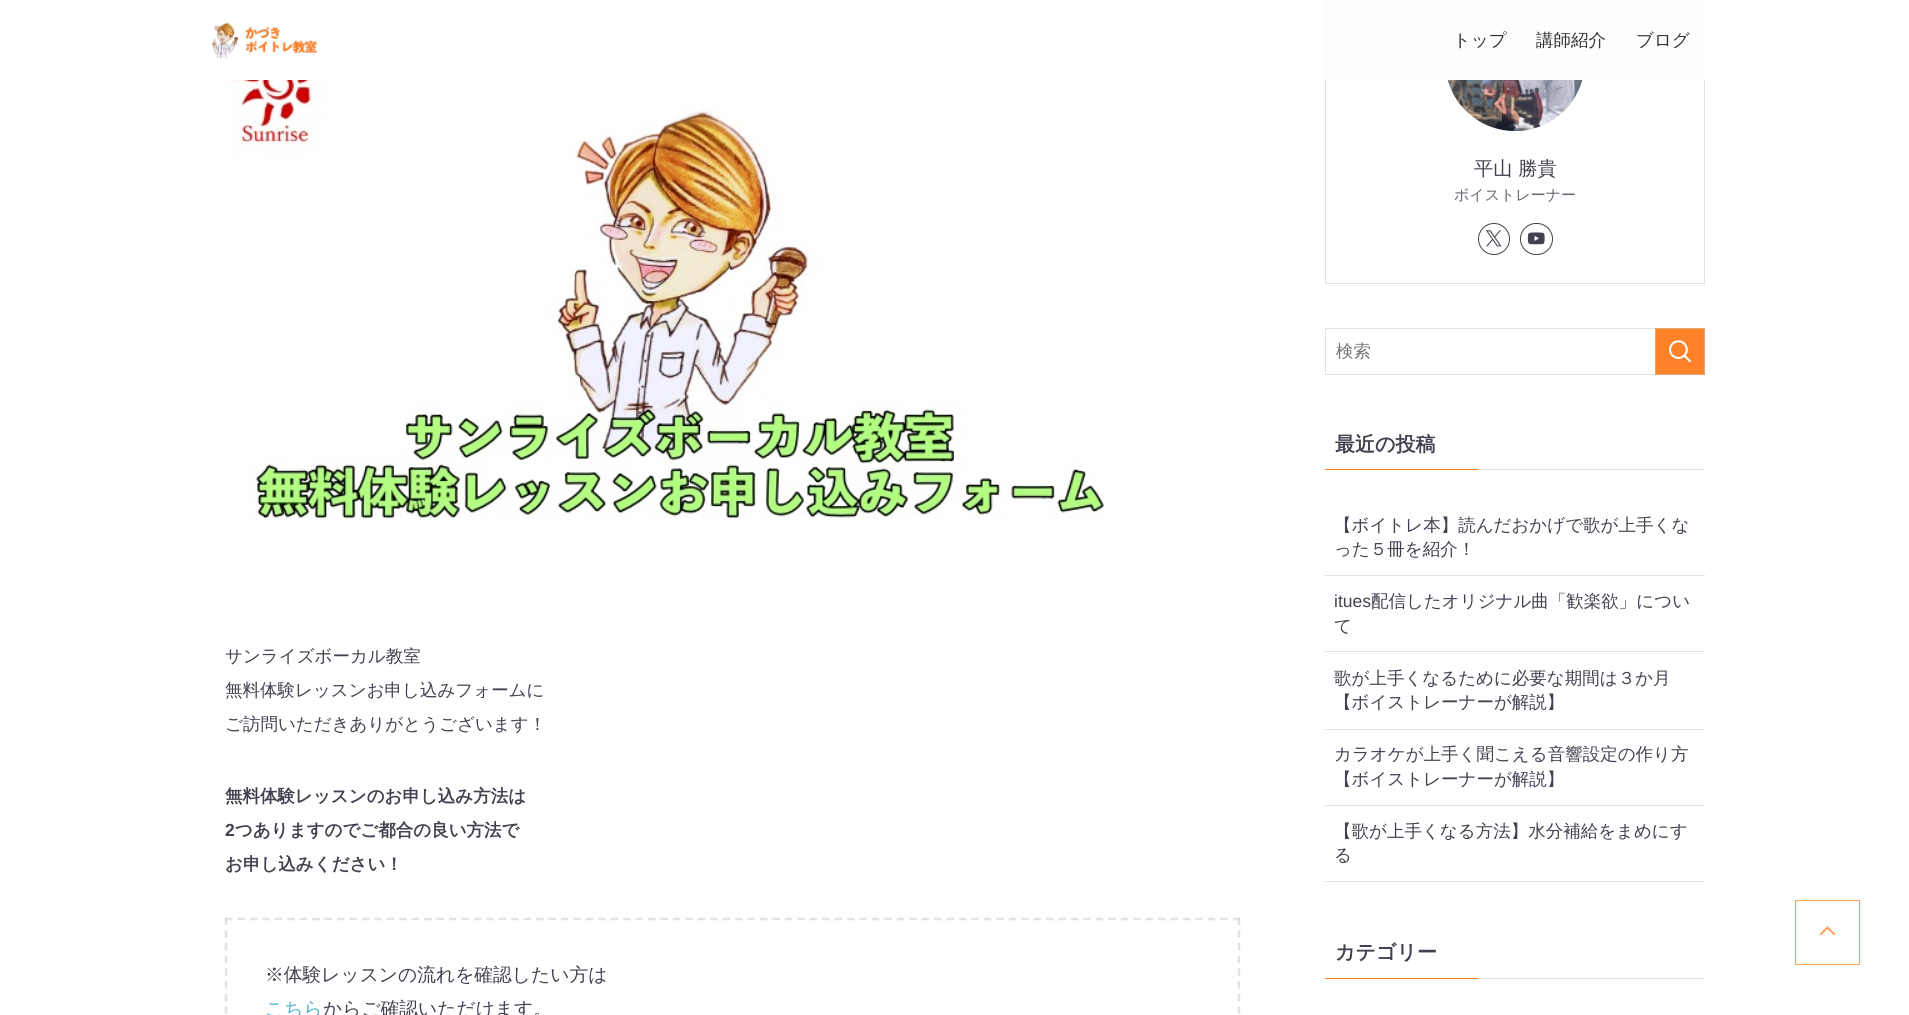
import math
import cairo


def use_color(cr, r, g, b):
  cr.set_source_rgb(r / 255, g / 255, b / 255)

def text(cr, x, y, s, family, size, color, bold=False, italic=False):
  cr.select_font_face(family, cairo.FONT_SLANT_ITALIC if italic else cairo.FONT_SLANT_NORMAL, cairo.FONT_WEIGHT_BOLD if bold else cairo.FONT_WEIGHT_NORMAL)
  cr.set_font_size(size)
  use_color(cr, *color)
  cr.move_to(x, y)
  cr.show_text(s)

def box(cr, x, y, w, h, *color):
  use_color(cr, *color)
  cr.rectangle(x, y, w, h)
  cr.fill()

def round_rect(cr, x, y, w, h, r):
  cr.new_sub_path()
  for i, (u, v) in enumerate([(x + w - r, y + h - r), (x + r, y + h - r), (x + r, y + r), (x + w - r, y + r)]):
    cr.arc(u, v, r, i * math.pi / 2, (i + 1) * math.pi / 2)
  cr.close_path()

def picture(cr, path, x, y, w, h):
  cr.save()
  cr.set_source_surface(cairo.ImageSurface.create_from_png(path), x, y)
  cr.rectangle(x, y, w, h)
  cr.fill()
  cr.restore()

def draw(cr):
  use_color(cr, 255, 255, 255)
  cr.paint()
  cr.rectangle(1325.5, -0.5, 379, 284)
  use_color(cr, 227, 227, 227)
  cr.set_line_width(1)
  cr.stroke()
  box(cr, 1325, 0, 380, 80, 253, 253, 253)
  picture(cr, "img_01.png", 212, 22, 105, 37)
  picture(cr, "img_02.png", 228, 80, 877, 439)
  cr.new_path()
  cr.move_to(225, 919)
  cr.line_to(1240, 919)
  use_color(cr, 227, 227, 227)
  cr.set_line_width(2.5)
  cr.set_dash([7.5, 4.94])
  cr.stroke()
  cr.new_path()
  cr.move_to(1239, 917.5)
  cr.line_to(1239, 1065)
  cr.set_source_rgba(0.78, 0.78, 0.78, 0.5)
  cr.set_dash([7.5, 5.22])
  cr.stroke()
  cr.new_path()
  cr.move_to(226, 917.5)
  cr.line_to(226, 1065)
  cr.stroke()
  picture(cr, "img_03.png", 1447, 80, 136, 51)
  cr.arc(1494, 239, 15.5, 0, 2 * math.pi)
  use_color(cr, 65, 65, 80)
  cr.set_line_width(1)
  cr.set_dash([])
  cr.stroke()
  picture(cr, "img_04.png", 1486, 230, 16, 17)
  round_rect(cr, 1520.5, 223.5, 32, 31, 15.5)
  cr.stroke()
  picture(cr, "img_05.png", 1527, 232, 18, 13)
  cr.rectangle(1325.5, 328.5, 379, 46)
  use_color(cr, 227, 227, 227)
  cr.stroke()
  use_color(cr, 255, 130, 40)
  cr.rectangle(1655.5, 328.5, 49, 46)
  cr.fill_preserve()
  use_color(cr, 227, 165, 120)
  cr.stroke()
  picture(cr, "img_06.png", 1669, 340, 22, 23)
  box(cr, 1325, 469, 153, 1, 255, 130, 40)
  box(cr, 1478, 469, 227, 1, 227, 227, 227)
  box(cr, 1325, 575, 380, 1, 227, 227, 227)
  box(cr, 1325, 651, 380, 1, 227, 227, 227)
  box(cr, 1325, 729, 380, 1, 227, 227, 227)
  box(cr, 1325, 805, 380, 1, 227, 227, 227)
  box(cr, 1325, 881, 380, 1, 227, 227, 227)
  box(cr, 1325, 978, 153, 1, 255, 130, 40)
  box(cr, 1478, 978, 227, 1, 227, 227, 227)
  cr.rectangle(1795.5, 900.5, 64, 64)
  use_color(cr, 255, 161, 94)
  cr.stroke()
  picture(cr, "img_07.png", 1819, 926, 17, 10)
  text(cr, 1453, 46, "トップ", "WenQuanYi Zen Hei Medium", 17.5, (51, 51, 51))
  text(cr, 1536, 46, "講師紹介", "WenQuanYi Zen Hei Medium", 17.5, (51, 51, 51))
  text(cr, 1636, 46, "ブログ", "WenQuanYi Zen Hei Medium", 17.5, (51, 51, 51))
  text(cr, 225, 662, "サンライズボーカル教室", "WenQuanYi Zen Hei Medium", 17.5, (65, 65, 80))
  text(cr, 225, 696, "無料体験レッスンお申し込みフォームに", "WenQuanYi Zen Hei Medium", 17.5, (65, 65, 80))
  text(cr, 225, 730, "ご訪問いただきありがとうございます！", "WenQuanYi Zen Hei Medium", 17.5, (65, 65, 80))
  text(cr, 225, 802, "無料体験レッスンのお申し込み方法は", "WenQuanYi Zen Hei", 17.5, (65, 65, 80), bold=True)
  text(cr, 225, 836, "2", "Liberation Sans", 17.5, (65, 65, 80), bold=True)
  text(cr, 235, 836, "つありますのでご都合の良い方法で", "WenQuanYi Zen Hei", 17.5, (65, 65, 80), bold=True)
  text(cr, 225, 870, "お申し込みください！", "WenQuanYi Zen Hei", 17.5, (65, 65, 80), bold=True)
  text(cr, 265, 981, "※体験レッスンの流れを確認したい方は", "WenQuanYi Zen Hei Medium", 18.75, (65, 65, 80))
  text(cr, 265, 1015, "こちら", "WenQuanYi Zen Hei Medium", 18.75, (80, 180, 200))
  text(cr, 323, 1015, "からご確認いただけます。", "WenQuanYi Zen Hei Medium", 18.75, (65, 65, 80))
  text(cr, 1474, 175, "平山 勝貴", "WenQuanYi Zen Hei Medium", 19.25, (65, 65, 80))
  text(cr, 1454, 200, "ボイストレーナー", "WenQuanYi Zen Hei Medium", 15, (103, 103, 115))
  text(cr, 1336, 357, "検索", "WenQuanYi Zen Hei Medium", 17.5, (117, 117, 117))
  text(cr, 1335, 451, "最近の投稿", "WenQuanYi Zen Hei", 20, (65, 65, 80), bold=True)
  text(cr, 1334, 531, "【ボイトレ本】読んだおかげで歌が上手くな", "WenQuanYi Zen Hei Medium", 17.5, (65, 65, 80))
  text(cr, 1334, 555, "った５冊を紹介！", "WenQuanYi Zen Hei Medium", 17.5, (65, 65, 80))
  text(cr, 1334, 607, "itues", "Liberation Sans", 17.5, (65, 65, 80))
  text(cr, 1371, 607, "配信したオリジナル曲「歓楽欲」につい", "WenQuanYi Zen Hei Medium", 17.5, (65, 65, 80))
  text(cr, 1334, 632, "て", "WenQuanYi Zen Hei Medium", 17.5, (65, 65, 80))
  text(cr, 1334, 684, "歌が上手くなるために必要な期間は３か月", "WenQuanYi Zen Hei Medium", 17.5, (65, 65, 80))
  text(cr, 1334, 708, "【ボイストレーナーが解説】", "WenQuanYi Zen Hei Medium", 17.5, (65, 65, 80))
  text(cr, 1334, 760, "カラオケが上手く聞こえる音響設定の作り方", "WenQuanYi Zen Hei Medium", 17.5, (65, 65, 80))
  text(cr, 1334, 785, "【ボイストレーナーが解説】", "WenQuanYi Zen Hei Medium", 17.5, (65, 65, 80))
  text(cr, 1334, 837, "【歌が上手くなる方法】水分補給をまめにす", "WenQuanYi Zen Hei Medium", 17.5, (65, 65, 80))
  text(cr, 1334, 861, "る", "WenQuanYi Zen Hei Medium", 17.5, (65, 65, 80))
  text(cr, 1335, 959, "カテゴリー", "WenQuanYi Zen Hei", 20, (65, 65, 80), bold=True)


surface = cairo.ImageSurface(cairo.FORMAT_RGB24, 1909, 1015)
cr = cairo.Context(surface)
options = cairo.FontOptions()
options.set_hint_metrics(cairo.HINT_METRICS_OFF)
options.set_hint_style(cairo.HINT_STYLE_NONE)
cr.set_font_options(options)
cr.set_miter_limit(4)
draw(cr)
surface.write_to_png("out.png")
